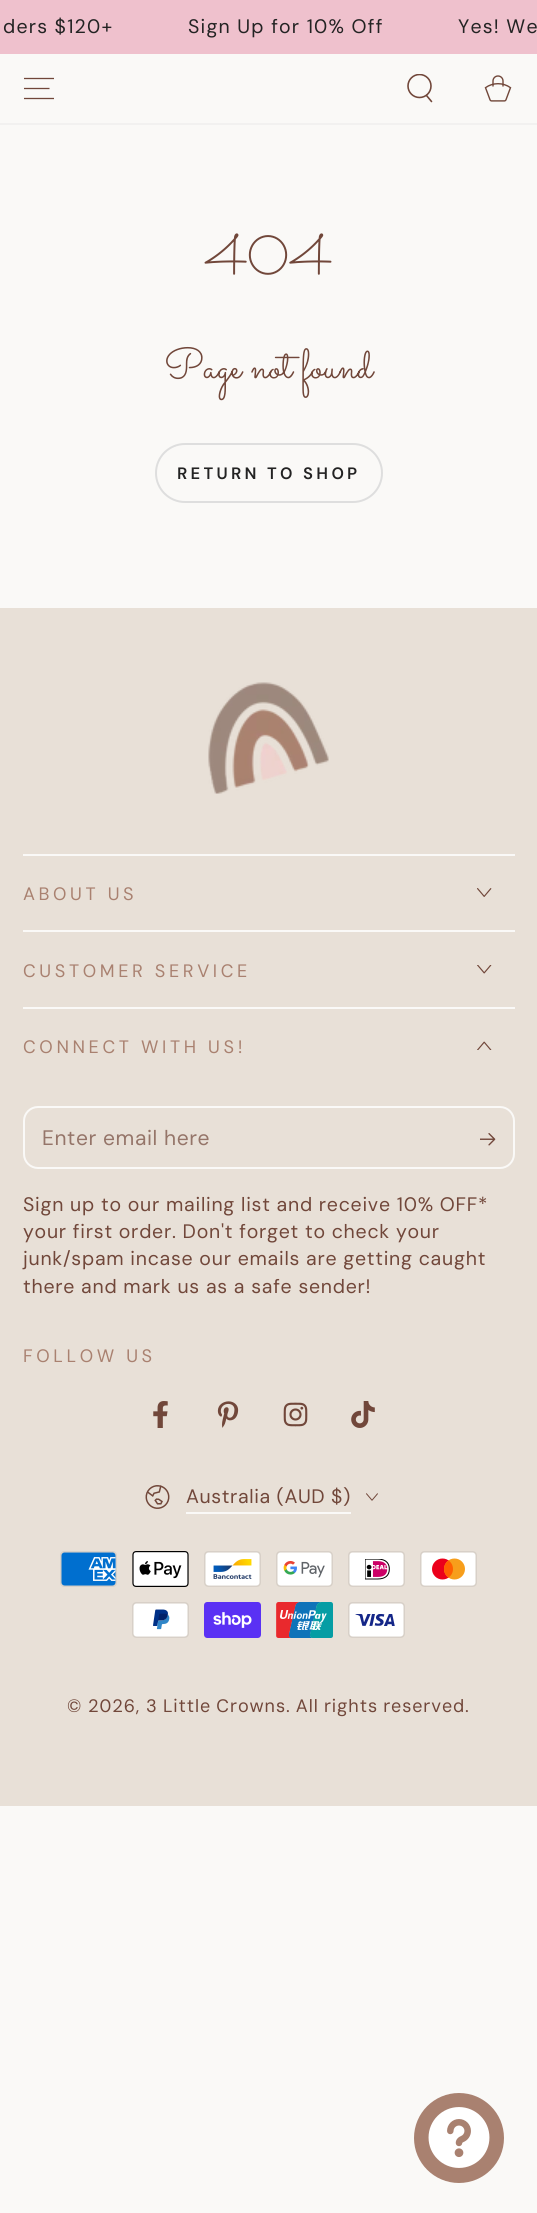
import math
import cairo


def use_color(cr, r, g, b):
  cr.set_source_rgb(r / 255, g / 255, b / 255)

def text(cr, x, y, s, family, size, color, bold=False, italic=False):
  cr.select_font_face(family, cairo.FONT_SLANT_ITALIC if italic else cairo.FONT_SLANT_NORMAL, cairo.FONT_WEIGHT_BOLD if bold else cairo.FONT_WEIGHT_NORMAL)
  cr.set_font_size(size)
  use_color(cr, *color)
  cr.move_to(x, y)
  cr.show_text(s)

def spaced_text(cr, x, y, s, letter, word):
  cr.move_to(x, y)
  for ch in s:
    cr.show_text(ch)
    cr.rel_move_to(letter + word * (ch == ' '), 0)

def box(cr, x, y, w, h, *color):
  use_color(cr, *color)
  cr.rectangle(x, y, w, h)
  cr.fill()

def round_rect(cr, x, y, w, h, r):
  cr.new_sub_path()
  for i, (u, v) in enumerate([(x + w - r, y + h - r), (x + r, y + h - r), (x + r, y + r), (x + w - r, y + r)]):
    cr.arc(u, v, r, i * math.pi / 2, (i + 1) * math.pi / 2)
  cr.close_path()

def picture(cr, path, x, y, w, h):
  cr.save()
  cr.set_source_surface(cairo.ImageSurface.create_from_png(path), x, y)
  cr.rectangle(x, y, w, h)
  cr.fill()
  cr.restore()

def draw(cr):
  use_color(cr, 250, 249, 247)
  cr.paint()
  box(cr, 0, 0, 537, 54, 239, 193, 205)
  box(cr, 0, 123, 537, 2, 242, 241, 240)
  cr.new_path()
  cr.move_to(24, 98.5)
  cr.line_to(54, 98.5)
  cr.move_to(24, 88.5)
  cr.line_to(49.5, 88.5)
  cr.move_to(24, 78.5)
  cr.line_to(54, 78.5)
  use_color(cr, 113, 71, 58)
  cr.set_line_width(1.3)
  cr.stroke()
  cr.save()
  cr.rectangle(405, 74, 30, 30)
  cr.clip()
  cr.arc(419.5, 86, 11.5, 0, 2 * math.pi)
  cr.set_line_width(1.6)
  cr.stroke()
  cr.restore()
  cr.new_path()
  cr.move_to(426.5, 95.5)
  cr.line_to(431.5, 101.5)
  cr.set_line_width(1.6)
  cr.set_line_cap(cairo.LINE_CAP_ROUND)
  cr.stroke()
  picture(cr, "img_01.png", 484, 75, 28, 27)
  round_rect(cr, 156, 444, 226, 58, 29)
  use_color(cr, 222, 222, 222)
  cr.set_line_width(2)
  cr.set_line_cap(cairo.LINE_CAP_BUTT)
  cr.stroke()
  box(cr, 0, 608, 537, 1198, 232, 224, 215)
  box(cr, 23, 854, 492, 2, 250, 249, 247)
  picture(cr, "img_02.png", 208, 682, 121, 112)
  box(cr, 23, 930, 492, 2, 250, 249, 247)
  picture(cr, "img_03.png", 477, 888, 15, 9)
  box(cr, 23, 1007, 492, 2, 250, 249, 247)
  picture(cr, "img_04.png", 477, 965, 15, 9)
  picture(cr, "img_05.png", 477, 1041, 15, 9)
  round_rect(cr, 24, 1107, 490, 61, 14)
  cr.stroke()
  picture(cr, "img_06.png", 480, 1133, 16, 13)
  picture(cr, "img_07.png", 153, 1401, 15, 27)
  picture(cr, "img_08.png", 217, 1401, 22, 27)
  picture(cr, "img_09.png", 283, 1402, 25, 25)
  picture(cr, "img_10.png", 351, 1401, 24, 27)
  picture(cr, "img_11.png", 145, 1485, 25, 24)
  box(cr, 186, 1512, 165, 2, 250, 249, 247)
  picture(cr, "img_12.png", 366, 1493, 12, 8)
  picture(cr, "img_13.png", 60, 1551, 57, 36)
  picture(cr, "img_14.png", 132, 1551, 57, 36)
  picture(cr, "img_15.png", 204, 1551, 57, 36)
  picture(cr, "img_16.png", 276, 1551, 57, 36)
  picture(cr, "img_17.png", 348, 1551, 57, 36)
  picture(cr, "img_18.png", 420, 1551, 57, 36)
  picture(cr, "img_19.png", 132, 1602, 57, 36)
  picture(cr, "img_20.png", 204, 1602, 57, 36)
  picture(cr, "img_21.png", 276, 1602, 57, 36)
  picture(cr, "img_22.png", 348, 1602, 57, 36)
  use_color(cr, 169, 129, 112)
  cr.arc(459, 2138, 45, 0, 2 * math.pi)
  cr.fill()
  picture(cr, "img_23.png", 428, 2107, 62, 61)
  cr.select_font_face("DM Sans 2")
  cr.set_font_size(19.5)
  use_color(cr, 35, 35, 35)
  spaced_text(cr, 3, 33, "ders $120+", 1.2, 0)
  spaced_text(cr, 188, 33, "Sign Up for 10% Off", 1.2, 0)
  spaced_text(cr, 458, 33, "Yes! We", 1.2, 0)
  text(cr, 204, 273, "404", "Sacramento", 54, (113, 71, 58))
  text(cr, 164, 378, "Page not found", "Sacramento", 42, (113, 71, 58))
  cr.select_font_face("DM Sans SemiBold")
  cr.set_font_size(16.5)
  use_color(cr, 35, 35, 35)
  spaced_text(cr, 177, 479, "RETURN TO SHOP", 3.25, 0)
  cr.select_font_face("DM Sans")
  cr.set_font_size(18)
  use_color(cr, 169, 129, 112)
  spaced_text(cr, 23, 900, "ABOUT US", 3.6, 0)
  spaced_text(cr, 23, 977, "CUSTOMER SERVICE", 3.6, 0)
  spaced_text(cr, 23, 1053, "CONNECT WITH US!", 3.6, 0)
  cr.select_font_face("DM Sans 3")
  cr.set_font_size(21)
  use_color(cr, 149, 117, 105)
  spaced_text(cr, 42, 1145, "Enter email here", 0.6, 0)
  cr.select_font_face("DM Sans 2")
  cr.set_font_size(19.5)
  use_color(cr, 113, 71, 58)
  spaced_text(cr, 23, 1211, "Sign up to our mailing list and receive 10% OFF*", 0.75, 0)
  spaced_text(cr, 23, 1238, "your first order. Don't forget to check your", 0.75, 0)
  spaced_text(cr, 23, 1265, "junk/spam incase our emails are getting caught", 0.75, 0)
  spaced_text(cr, 23, 1293, "there and mark us as a safe sender!", 0.75, 0)
  cr.select_font_face("DM Sans")
  cr.set_font_size(18)
  use_color(cr, 169, 129, 112)
  spaced_text(cr, 23, 1362, "FOLLOW US", 3.6, 0)
  cr.select_font_face("DM Sans 2")
  cr.set_font_size(19.5)
  use_color(cr, 113, 71, 58)
  spaced_text(cr, 186, 1503, "Australia (AUD $)", 0.6, 0)
  cr.select_font_face("DM Sans")
  cr.set_font_size(18)
  spaced_text(cr, 67, 1712, "© 2026,", 0.9, 0)
  spaced_text(cr, 146, 1712, "3 Little Crowns. All rights reserved.", 0.9, -0.5)


surface = cairo.ImageSurface(cairo.FORMAT_RGB24, 537, 2213)
cr = cairo.Context(surface)
options = cairo.FontOptions()
options.set_hint_metrics(cairo.HINT_METRICS_OFF)
options.set_hint_style(cairo.HINT_STYLE_NONE)
cr.set_font_options(options)
cr.set_miter_limit(4)
draw(cr)
surface.write_to_png("out.png")
